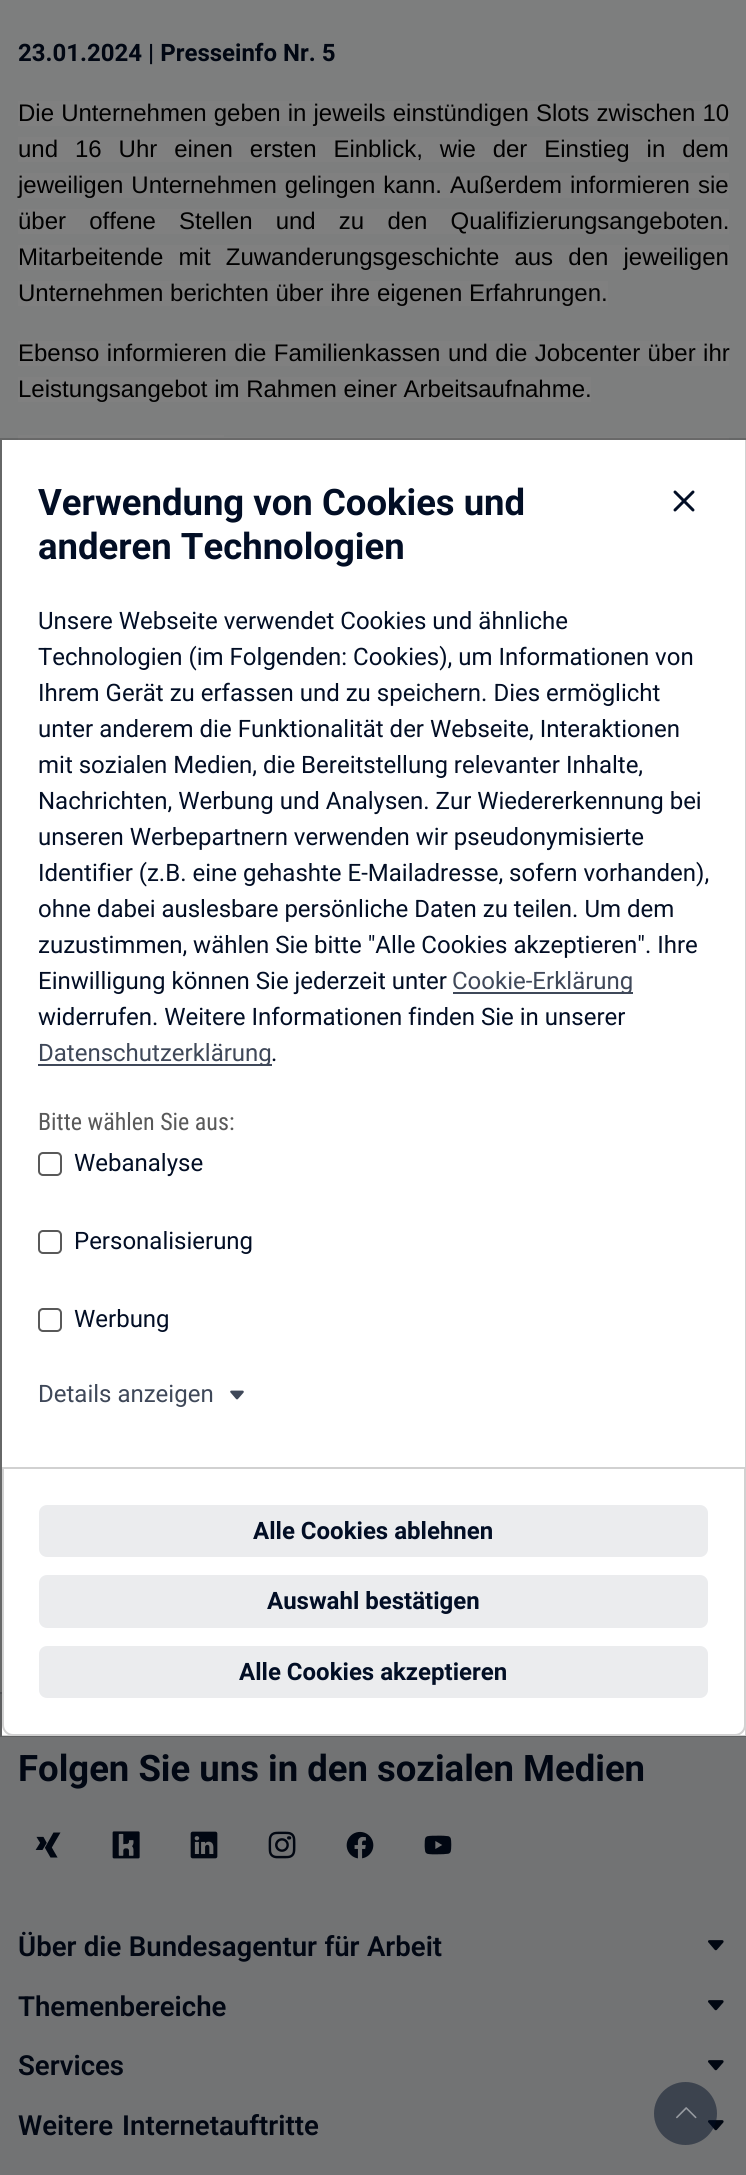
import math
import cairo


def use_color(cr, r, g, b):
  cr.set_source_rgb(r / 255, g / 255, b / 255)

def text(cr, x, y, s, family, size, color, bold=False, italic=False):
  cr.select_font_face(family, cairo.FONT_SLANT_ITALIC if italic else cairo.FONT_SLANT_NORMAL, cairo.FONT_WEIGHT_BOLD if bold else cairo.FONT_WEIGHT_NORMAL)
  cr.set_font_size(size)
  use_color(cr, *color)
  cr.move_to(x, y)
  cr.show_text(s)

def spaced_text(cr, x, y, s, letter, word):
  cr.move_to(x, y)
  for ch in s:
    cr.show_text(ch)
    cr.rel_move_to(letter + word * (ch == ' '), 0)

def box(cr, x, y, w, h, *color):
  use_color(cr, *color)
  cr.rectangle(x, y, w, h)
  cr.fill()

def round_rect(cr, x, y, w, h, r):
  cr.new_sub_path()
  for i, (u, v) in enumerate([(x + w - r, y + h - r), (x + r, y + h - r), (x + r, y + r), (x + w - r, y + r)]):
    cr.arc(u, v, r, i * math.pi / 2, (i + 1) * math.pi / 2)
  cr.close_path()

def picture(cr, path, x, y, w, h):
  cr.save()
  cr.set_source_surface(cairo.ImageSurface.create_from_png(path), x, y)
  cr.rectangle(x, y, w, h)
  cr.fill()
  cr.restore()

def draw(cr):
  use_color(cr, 125, 126, 126)
  cr.paint()
  box(cr, 18, 101, 711, 25, 128, 128, 128)
  box(cr, 18, 137, 711, 25, 128, 128, 128)
  box(cr, 18, 173, 711, 25, 128, 128, 128)
  box(cr, 18, 209, 711, 25, 128, 128, 128)
  box(cr, 18, 245, 711, 25, 128, 128, 128)
  box(cr, 18, 281, 590, 25, 128, 128, 128)
  box(cr, 18, 341, 711, 25, 128, 128, 128)
  box(cr, 18, 377, 573, 25, 128, 128, 128)
  box(cr, 18, 435, 206, 5, 128, 128, 128)
  box(cr, 224, 437, 505, 3, 128, 128, 128)
  box(cr, 0, 1694, 746, 481, 114, 115, 116)
  box(cr, 2, 440, 744, 1296, 255, 255, 255)
  box(cr, 0, 1692, 2, 2, 96, 98, 100)
  cr.rectangle(1, 439, 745, 1297)
  cr.set_source_rgba(0, 0, 0, 0.18)
  cr.stroke()
  picture(cr, "img_01.png", 673, 490, 22, 22)
  box(cr, 453, 992, 180, 2, 63, 72, 89)
  box(cr, 38, 1064, 234, 2, 63, 72, 89)
  round_rect(cr, 39, 1153, 22, 22, 4)
  use_color(cr, 89, 89, 89)
  cr.stroke()
  round_rect(cr, 39, 1231, 22, 22, 4)
  cr.stroke()
  round_rect(cr, 39, 1309, 22, 22, 4)
  cr.stroke()
  picture(cr, "img_02.png", 230, 1390, 14, 10)
  use_color(cr, 255, 255, 255)
  cr.new_path()
  cr.move_to(2, 1467)
  cr.line_to(746, 1467)
  cr.line_to(746, 1725)
  cr.curve_to(746, 1731, 741, 1736, 735, 1736)
  cr.line_to(13, 1736)
  cr.curve_to(7, 1736, 2, 1731, 2, 1725)
  cr.close_path()
  cr.fill()
  cr.new_path()
  cr.move_to(3, 1468)
  cr.line_to(745, 1468)
  cr.line_to(745, 1725)
  cr.curve_to(745, 1730.5, 740.5, 1735, 735, 1735)
  cr.line_to(13, 1735)
  cr.curve_to(7.5, 1735, 3, 1730.5, 3, 1725)
  cr.close_path()
  cr.set_source_rgba(0, 0, 0, 0.18)
  cr.stroke()
  use_color(cr, 235, 236, 238)
  round_rect(cr, 39, 1505, 669, 52, 8)
  cr.fill()
  round_rect(cr, 39, 1575, 669, 53, 8)
  cr.fill()
  round_rect(cr, 39, 1646, 669, 52, 8)
  cr.fill()
  picture(cr, "img_03.png", 35, 1832, 26, 26)
  picture(cr, "img_04.png", 112, 1831, 28, 28)
  picture(cr, "img_05.png", 190, 1831, 28, 28)
  picture(cr, "img_06.png", 268, 1831, 28, 28)
  picture(cr, "img_07.png", 346, 1831, 28, 28)
  picture(cr, "img_08.png", 424, 1835, 28, 20)
  picture(cr, "img_09.png", 708, 1940, 16, 11)
  picture(cr, "img_09.png", 708, 2000, 16, 11)
  picture(cr, "img_09.png", 708, 2060, 16, 11)
  picture(cr, "img_09.png", 708, 2120, 16, 11)
  cr.set_source_rgba(0.008, 0.055, 0.145, 0.47)
  cr.arc(685.5, 2113.5, 31.5, 0, 2 * math.pi)
  cr.fill()
  picture(cr, "img_10.png", 676, 2107, 21, 12)
  text(cr, 18, 61, "23.01.2024 | Presseinfo Nr. 5", "Roboto", 24, (1, 7, 19), bold=True)
  cr.select_font_face("Liberation Sans")
  use_color(cr, 0, 0, 0)
  spaced_text(cr, 18, 121, "Die Unternehmen geben in jeweils einstündigen Slots zwischen 10", 0, 0.5)
  spaced_text(cr, 18, 157, "und 16 Uhr einen ersten Einblick, wie der Einstieg in dem", 0, 10.25)
  spaced_text(cr, 18, 193, "jeweiligen Unternehmen gelingen kann. Außerdem informieren sie", 0, 1.25)
  spaced_text(cr, 18, 229, "über offene Stellen und zu den Qualifizierungsangeboten.", 0, 16.5)
  spaced_text(cr, 18, 265, "Mitarbeitende mit Zuwanderungsgeschichte aus den jeweiligen", 0, 8.5)
  text(cr, 18, 301, "Unternehmen berichten über ihre eigenen Erfahrungen.", "Liberation Sans", 24, (0, 0, 0))
  spaced_text(cr, 18, 361, "Ebenso informieren die Familienkassen und die Jobcenter über ihr", 0, 0.75)
  text(cr, 18, 397, "Leistungsangebot im Rahmen einer Arbeitsaufnahme.", "Liberation Sans", 24, (0, 0, 0))
  text(cr, 38, 515, "Verwendung von Cookies und", "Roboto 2", 36.5, (2, 14, 37), bold=True)
  text(cr, 38, 559, "anderen Technologien", "Roboto 2", 36.5, (2, 14, 37), bold=True)
  text(cr, 38, 629, "Unsere Webseite verwendet Cookies und ähnliche", "Roboto", 24, (2, 14, 37))
  text(cr, 38, 665, "Technologien (im Folgenden: Cookies), um Informationen von", "Roboto", 24, (2, 14, 37))
  text(cr, 38, 701, "Ihrem Gerät zu erfassen und zu speichern. Dies ermöglicht", "Roboto", 24, (2, 14, 37))
  text(cr, 38, 737, "unter anderem die Funktionalität der Webseite, Interaktionen", "Roboto", 24, (2, 14, 37))
  text(cr, 38, 773, "mit sozialen Medien, die Bereitstellung relevanter Inhalte,", "Roboto", 24, (2, 14, 37))
  text(cr, 38, 809, "Nachrichten, Werbung und Analysen. Zur Wiedererkennung bei", "Roboto", 24, (2, 14, 37))
  text(cr, 38, 845, "unseren Werbepartnern verwenden wir pseudonymisierte", "Roboto", 24, (2, 14, 37))
  text(cr, 38, 881, "Identifier (z.B. eine gehashte E-Mailadresse, sofern vorhanden),", "Roboto", 24, (2, 14, 37))
  text(cr, 38, 917, "ohne dabei auslesbare persönliche Daten zu teilen. Um dem", "Roboto", 24, (2, 14, 37))
  text(cr, 38, 953, "zuzustimmen, wählen Sie bitte \"Alle Cookies akzeptieren\". Ihre", "Roboto", 24, (2, 14, 37))
  text(cr, 38, 989, "Einwilligung können Sie jederzeit unter", "Roboto", 24, (2, 14, 37))
  text(cr, 452, 989, "Cookie-Erklärung", "Roboto", 24, (63, 72, 89))
  text(cr, 38, 1025, "widerrufen. Weitere Informationen finden Sie in unserer", "Roboto", 24, (2, 14, 37))
  text(cr, 38, 1061, "Datenschutzerklärung", "Roboto", 24, (63, 72, 89))
  text(cr, 271, 1061, ".", "Roboto", 24, (2, 14, 37))
  text(cr, 38, 1130, "Bitte wählen Sie aus:", "Roboto Condensed", 24, (89, 89, 89))
  text(cr, 74, 1171, "Webanalyse", "Roboto", 24, (2, 14, 37))
  text(cr, 74, 1249, "Personalisierung", "Roboto", 24, (2, 14, 37))
  text(cr, 74, 1327, "Werbung", "Roboto", 24, (2, 14, 37))
  text(cr, 38, 1402, "Details anzeigen", "Roboto", 24, (63, 72, 89))
  text(cr, 253, 1539, "Alle Cookies ablehnen", "Roboto", 24, (2, 14, 37), bold=True)
  text(cr, 267, 1609, "Auswahl bestätigen", "Roboto", 24, (2, 14, 37), bold=True)
  text(cr, 239, 1680, "Alle Cookies akzeptieren", "Roboto", 24, (2, 14, 37), bold=True)
  text(cr, 18, 1781, "Folgen Sie uns in den sozialen Medien", "Roboto 2", 36.5, (1, 7, 19), bold=True)
  cr.select_font_face("Roboto SemiBold")
  cr.set_font_size(27.6)
  spaced_text(cr, 18, 1956, "Über die Bundesagentur für Arbeit", 0, 0.5)
  text(cr, 18, 2016, "Themenbereiche", "Roboto SemiBold", 27.6, (1, 7, 19))
  text(cr, 18, 2075, "Services", "Roboto SemiBold", 27.6, (1, 7, 19))
  spaced_text(cr, 18, 2135, "Weitere Internetauftritte", 0, 2)


surface = cairo.ImageSurface(cairo.FORMAT_RGB24, 746, 2175)
cr = cairo.Context(surface)
options = cairo.FontOptions()
options.set_hint_metrics(cairo.HINT_METRICS_OFF)
options.set_hint_style(cairo.HINT_STYLE_NONE)
cr.set_font_options(options)
cr.set_miter_limit(4)
draw(cr)
surface.write_to_png("out.png")
